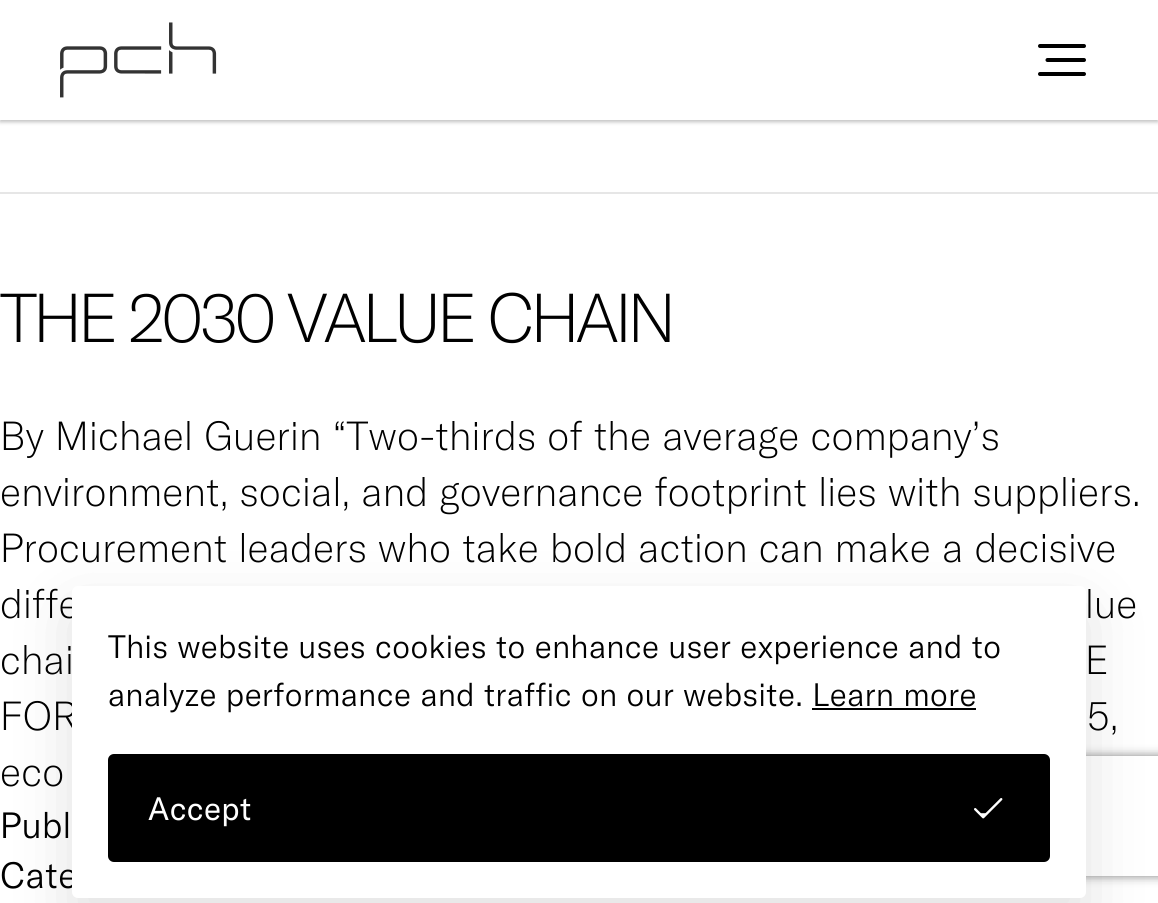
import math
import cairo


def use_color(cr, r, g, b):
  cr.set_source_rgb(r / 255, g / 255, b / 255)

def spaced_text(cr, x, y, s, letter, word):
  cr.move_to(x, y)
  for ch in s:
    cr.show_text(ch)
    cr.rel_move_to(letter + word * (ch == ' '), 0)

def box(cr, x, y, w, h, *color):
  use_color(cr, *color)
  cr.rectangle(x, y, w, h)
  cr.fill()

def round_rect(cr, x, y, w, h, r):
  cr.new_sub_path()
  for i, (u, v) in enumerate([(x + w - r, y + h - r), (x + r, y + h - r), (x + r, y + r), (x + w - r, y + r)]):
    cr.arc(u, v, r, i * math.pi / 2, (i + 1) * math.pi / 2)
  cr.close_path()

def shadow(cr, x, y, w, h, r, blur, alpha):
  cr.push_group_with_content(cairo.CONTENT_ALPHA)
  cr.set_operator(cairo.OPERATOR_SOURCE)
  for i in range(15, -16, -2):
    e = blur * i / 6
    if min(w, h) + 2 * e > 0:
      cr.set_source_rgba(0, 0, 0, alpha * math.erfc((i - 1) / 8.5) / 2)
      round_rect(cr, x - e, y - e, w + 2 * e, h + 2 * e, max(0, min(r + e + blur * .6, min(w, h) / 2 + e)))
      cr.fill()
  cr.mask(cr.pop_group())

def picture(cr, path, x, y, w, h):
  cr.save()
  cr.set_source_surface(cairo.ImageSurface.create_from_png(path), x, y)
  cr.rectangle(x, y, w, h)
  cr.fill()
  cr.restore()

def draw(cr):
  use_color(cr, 255, 255, 255)
  cr.paint()
  use_color(cr, 0, 0, 0)
  shadow(cr, 0, 2, 1158, 120, 0, 2, 0.25)
  box(cr, 0, 0, 1158, 120, 255, 255, 255)
  picture(cr, "img_01.png", 60, 22, 157, 76)
  cr.new_path()
  cr.move_to(1040, 46)
  cr.line_to(1084, 46)
  cr.move_to(1047.5, 60)
  cr.line_to(1084, 60)
  cr.move_to(1040, 74)
  cr.line_to(1084, 74)
  use_color(cr, 0, 0, 0)
  cr.set_line_width(4)
  cr.set_line_cap(cairo.LINE_CAP_ROUND)
  cr.set_line_join(cairo.LINE_JOIN_ROUND)
  cr.stroke()
  box(cr, 0, 192, 1158, 2, 230, 230, 230)
  use_color(cr, 0, 0, 0)
  shadow(cr, 72, 610, 1014, 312, 6, 32, 0.12)
  cr.save()
  cr.set_fill_rule(cairo.FILL_RULE_EVEN_ODD)
  cr.new_path()
  cr.move_to(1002, 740)
  cr.line_to(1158, 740)
  cr.line_to(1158, 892)
  cr.line_to(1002, 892)
  cr.close_path()
  cr.move_to(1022, 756)
  cr.line_to(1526, 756)
  cr.curve_to(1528, 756, 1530, 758, 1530, 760)
  cr.line_to(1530, 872)
  cr.curve_to(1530, 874, 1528, 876, 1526, 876)
  cr.line_to(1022, 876)
  cr.curve_to(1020, 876, 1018, 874, 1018, 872)
  cr.line_to(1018, 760)
  cr.curve_to(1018, 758, 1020, 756, 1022, 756)
  cr.close_path()
  cr.clip()
  use_color(cr, 128, 128, 128)
  shadow(cr, 1018, 756, 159, 120, 4, 5, 1)
  cr.restore()
  cr.select_font_face("GT America Light")
  cr.set_font_size(68)
  use_color(cr, 0, 0, 0)
  spaced_text(cr, 0, 342, "THE 2030 VALUE CHAIN", -4.1, 0)
  cr.set_font_size(40)
  spaced_text(cr, 0, 450, "By Michael Guerin “Two-thirds of the average company’s", 0.2, 0)
  spaced_text(cr, 0, 506, "environment, social, and governance footprint lies with suppliers.", 0.2, 0)
  spaced_text(cr, 0, 562, "Procurement leaders who take bold action can make a decisive", 0.2, 0)
  spaced_text(cr, 0, 618, "diffe", 0.2, 0)
  spaced_text(cr, 1085, 618, "lue", 0.2, 0)
  cr.select_font_face("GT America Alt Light")
  spaced_text(cr, 0, 674, "chai", 0.2, 0)
  spaced_text(cr, 1085, 674, "E", 0.2, 0)
  cr.select_font_face("GT America Light")
  spaced_text(cr, 0, 730, "FOR", 0.2, 0)
  spaced_text(cr, 1087, 730, "5,", 0.2, 0)
  spaced_text(cr, 0, 786, "eco", 0.2, 0)
  cr.select_font_face("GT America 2 Light")
  cr.set_font_size(36)
  spaced_text(cr, 0, 838, "Publ", 0.55, 0)
  spaced_text(cr, 0, 888, "Cate", 0.55, 0)
  use_color(cr, 255, 255, 255)
  round_rect(cr, 72, 586, 1014, 312, 6)
  cr.fill()
  cr.set_font_size(32)
  use_color(cr, 0, 0, 0)
  spaced_text(cr, 108, 658, "This website uses cookies to enhance user experience and to", 0.55, 0)
  spaced_text(cr, 108, 706, "analyze performance and traffic on our website. Learn more", 0.55, 0)
  box(cr, 812, 708, 164, 2, 0, 0, 0)
  round_rect(cr, 108, 754, 942, 108, 6)
  cr.fill()
  cr.select_font_face("GT America")
  use_color(cr, 255, 255, 255)
  spaced_text(cr, 148, 820, "Accept", 0.5, 0)
  picture(cr, "img_02.png", 974, 798, 29, 21)


surface = cairo.ImageSurface(cairo.FORMAT_RGB24, 1158, 903)
cr = cairo.Context(surface)
options = cairo.FontOptions()
options.set_hint_metrics(cairo.HINT_METRICS_OFF)
options.set_hint_style(cairo.HINT_STYLE_NONE)
cr.set_font_options(options)
cr.set_miter_limit(4)
draw(cr)
surface.write_to_png("out.png")
